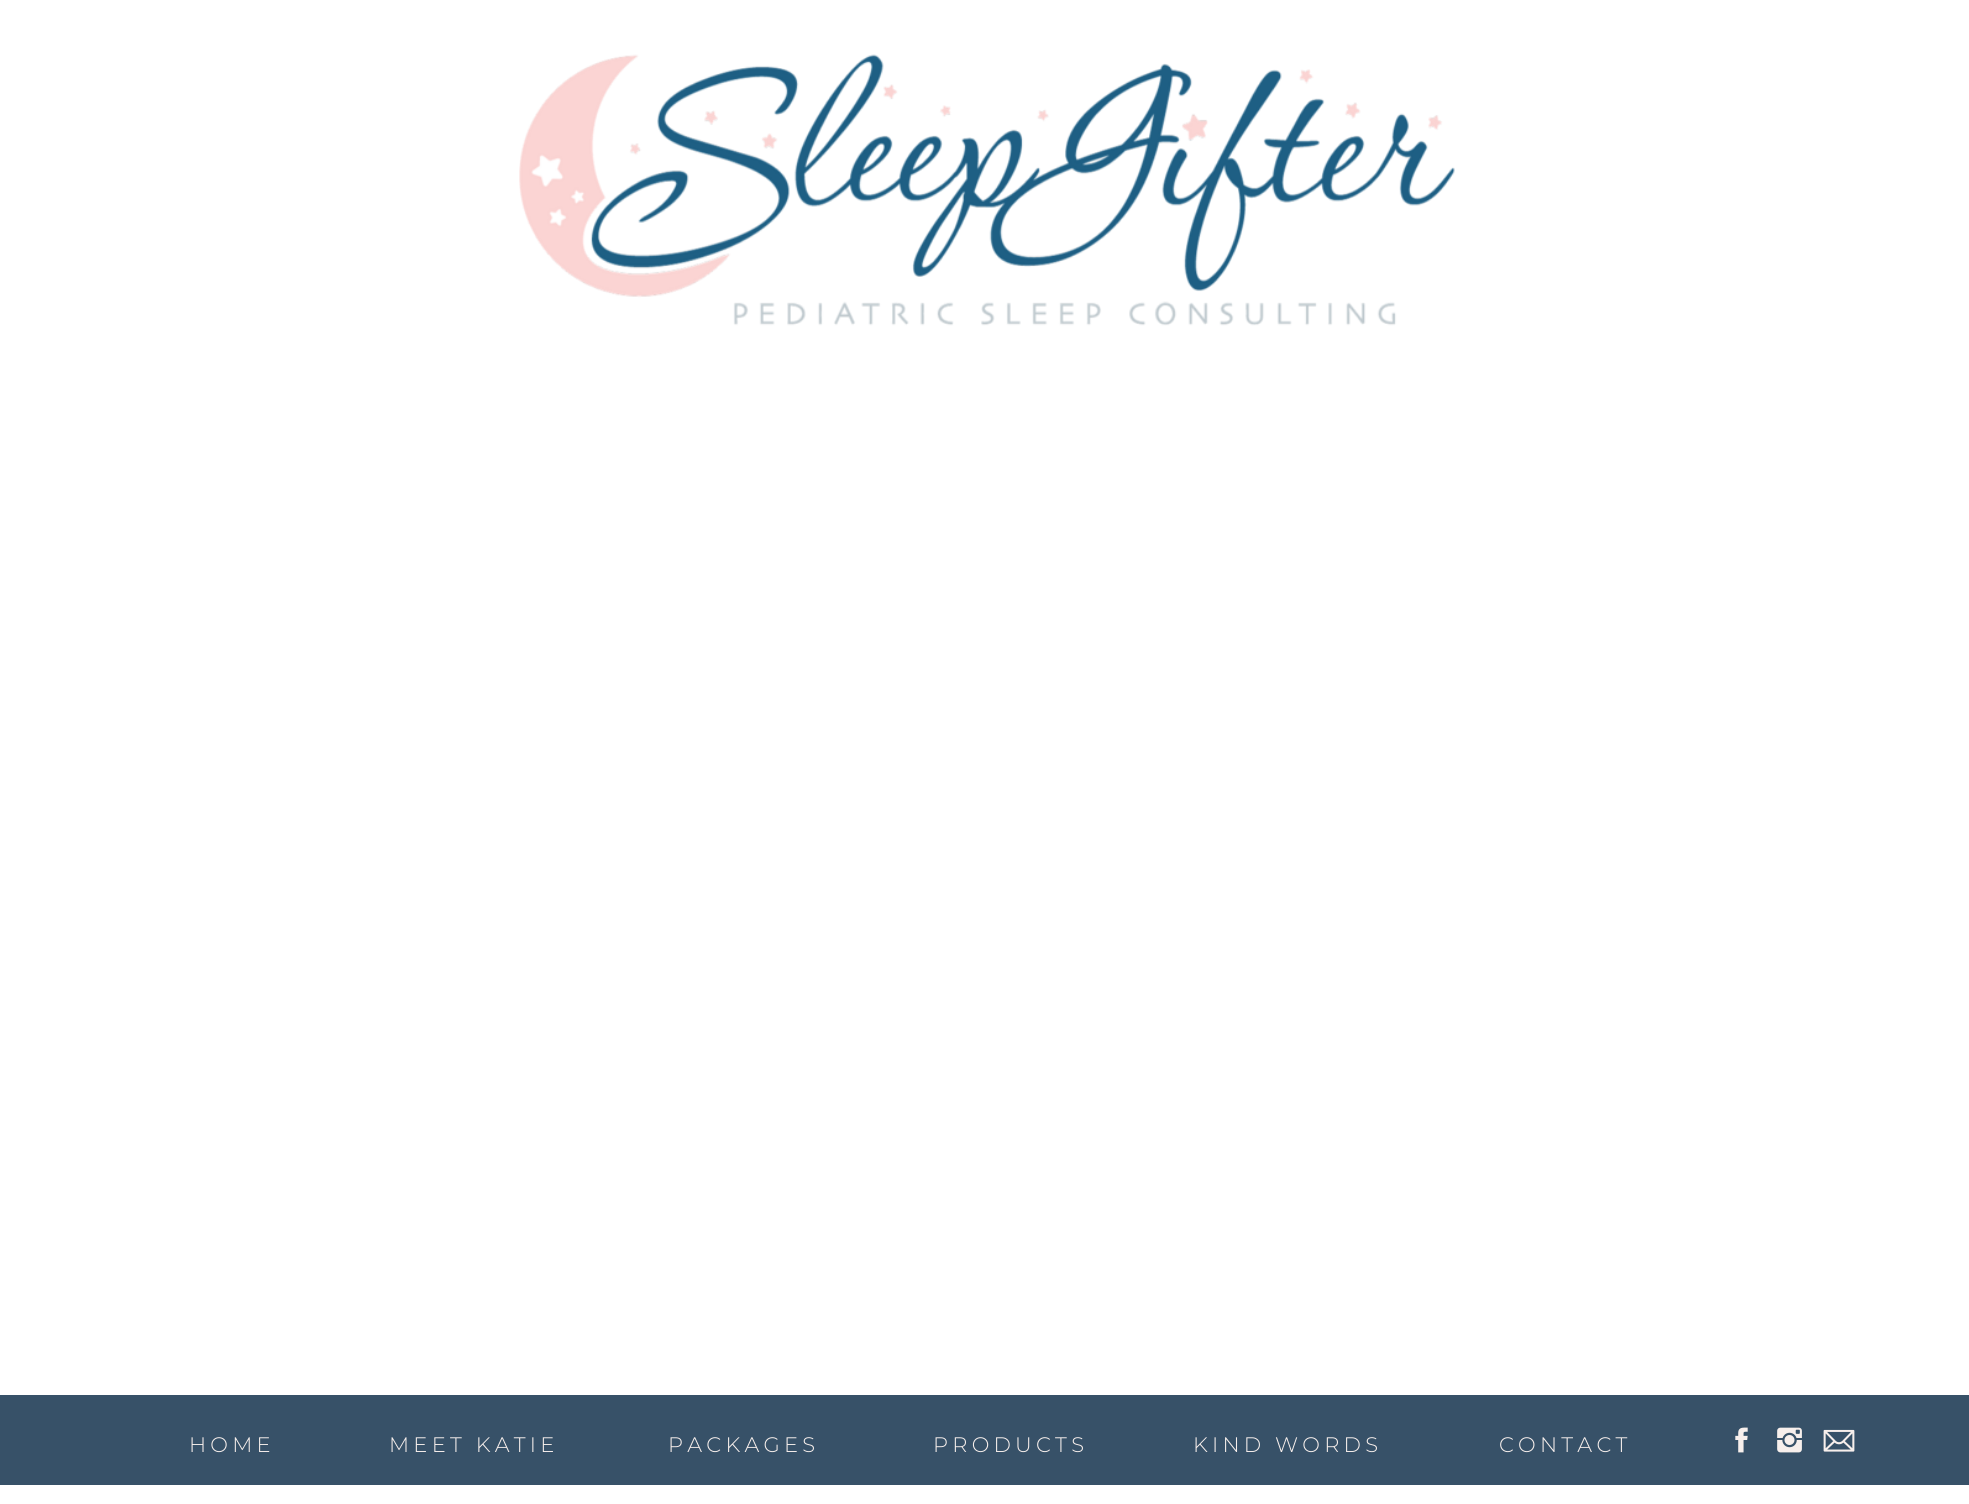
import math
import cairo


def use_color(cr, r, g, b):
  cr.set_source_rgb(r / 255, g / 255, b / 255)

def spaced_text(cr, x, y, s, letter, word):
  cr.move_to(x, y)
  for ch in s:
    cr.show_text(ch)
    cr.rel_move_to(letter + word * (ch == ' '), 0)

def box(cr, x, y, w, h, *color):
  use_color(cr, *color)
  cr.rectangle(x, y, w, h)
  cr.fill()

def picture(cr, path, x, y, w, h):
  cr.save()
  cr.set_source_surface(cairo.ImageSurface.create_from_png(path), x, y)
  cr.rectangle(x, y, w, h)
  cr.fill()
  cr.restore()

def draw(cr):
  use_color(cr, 255, 255, 255)
  cr.paint()
  picture(cr, "img_01.png", 519, 54, 936, 272)
  box(cr, 0, 1395, 1969, 90, 55, 81, 104)
  picture(cr, "img_02.png", 1735, 1427, 13, 26)
  picture(cr, "img_03.png", 1777, 1427, 25, 26)
  picture(cr, "img_04.png", 1823, 1429, 32, 23)
  cr.select_font_face("Montserrat Light")
  cr.set_font_size(21)
  use_color(cr, 247, 239, 236)
  spaced_text(cr, 189, 1452, "HOME", 4.25, 0)
  spaced_text(cr, 389, 1452, "MEET KATIE", 4.25, 0)
  spaced_text(cr, 668, 1452, "PACKAGES", 4.25, 0)
  spaced_text(cr, 933, 1452, "PRODUCTS", 4.25, 0)
  spaced_text(cr, 1193, 1452, "KIND WORDS", 4.25, 0)
  spaced_text(cr, 1499, 1452, "CONTACT", 4.25, 0)


surface = cairo.ImageSurface(cairo.FORMAT_RGB24, 1969, 1504)
cr = cairo.Context(surface)
options = cairo.FontOptions()
options.set_hint_metrics(cairo.HINT_METRICS_OFF)
options.set_hint_style(cairo.HINT_STYLE_NONE)
cr.set_font_options(options)
cr.set_miter_limit(4)
draw(cr)
surface.write_to_png("out.png")
